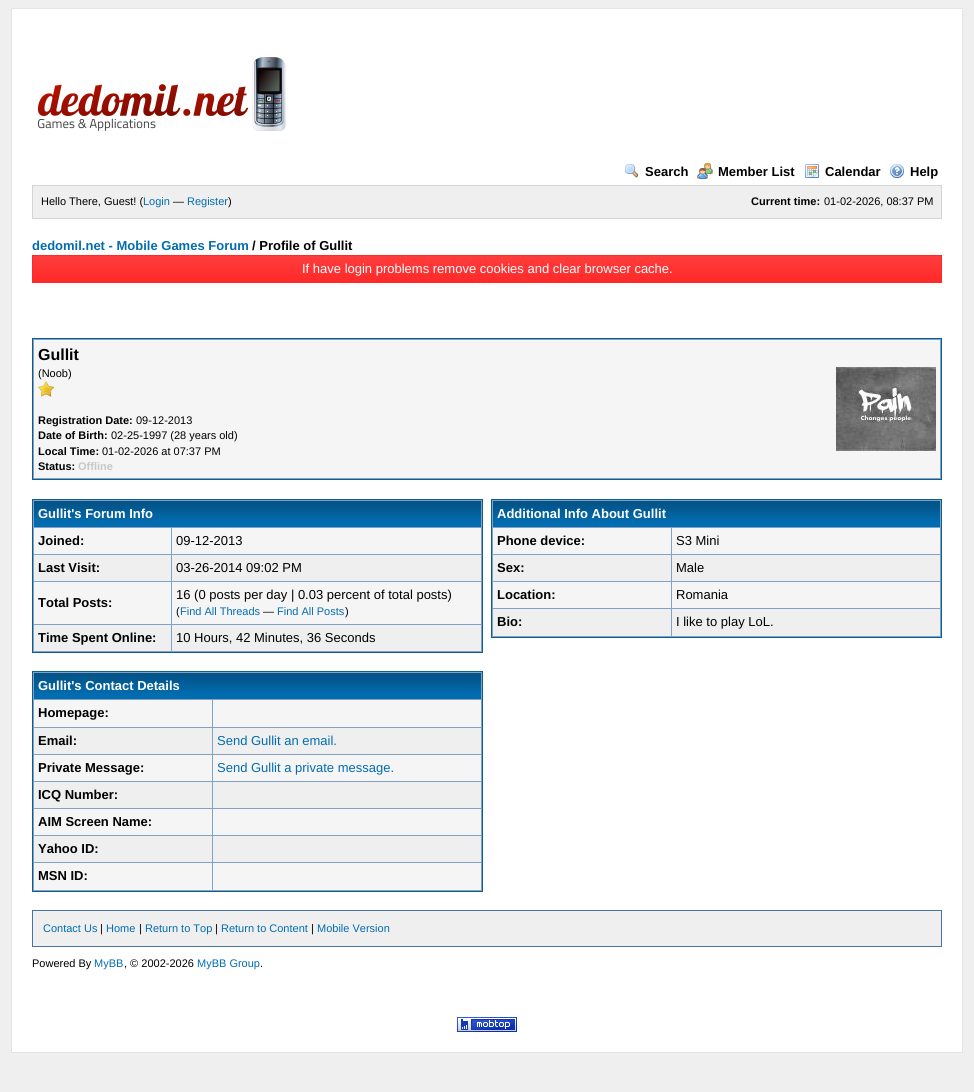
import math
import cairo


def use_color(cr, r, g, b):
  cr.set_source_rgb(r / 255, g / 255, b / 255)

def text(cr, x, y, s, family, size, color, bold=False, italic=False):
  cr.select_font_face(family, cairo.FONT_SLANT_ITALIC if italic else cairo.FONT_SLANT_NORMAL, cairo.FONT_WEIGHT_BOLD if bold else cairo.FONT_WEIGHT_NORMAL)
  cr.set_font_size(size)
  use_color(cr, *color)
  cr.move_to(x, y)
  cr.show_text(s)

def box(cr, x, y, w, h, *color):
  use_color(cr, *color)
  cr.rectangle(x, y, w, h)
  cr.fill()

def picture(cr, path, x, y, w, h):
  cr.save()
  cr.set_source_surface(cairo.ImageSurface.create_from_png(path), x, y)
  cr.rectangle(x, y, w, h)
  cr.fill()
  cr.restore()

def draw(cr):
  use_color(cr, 239, 239, 239)
  cr.paint()
  use_color(cr, 255, 255, 255)
  cr.rectangle(11.5, 8.5, 951, 1044)
  cr.fill_preserve()
  use_color(cr, 228, 228, 228)
  cr.set_line_width(1)
  cr.stroke()
  picture(cr, "img_01.png", 37, 57, 249, 74)
  picture(cr, "img_02.png", 625, 164, 13, 14)
  picture(cr, "img_03.png", 697, 163, 16, 16)
  picture(cr, "img_04.png", 805, 164, 14, 14)
  picture(cr, "img_05.png", 890, 164, 14, 14)
  use_color(cr, 239, 239, 239)
  cr.rectangle(32.5, 185.5, 909, 33)
  cr.fill_preserve()
  use_color(cr, 212, 212, 212)
  cr.stroke()
  gradient = cairo.LinearGradient(487, 256, 487, 282)
  gradient.add_color_stop_rgba(0, 1, 0.239, 0.239, 1)
  gradient.add_color_stop_rgba(1, 1, 0.161, 0.161, 1)
  cr.set_source(gradient)
  cr.rectangle(33, 256, 908, 26)
  cr.fill()
  cr.rectangle(32.5, 255.5, 909, 27)
  use_color(cr, 255, 41, 41)
  cr.stroke()
  use_color(cr, 129, 162, 196)
  cr.rectangle(32.5, 338.5, 909, 141)
  cr.fill_preserve()
  use_color(cr, 15, 92, 142)
  cr.stroke()
  box(cr, 34, 340, 906, 138, 245, 245, 245)
  picture(cr, "img_06.png", 38, 381, 16, 16)
  picture(cr, "img_07.png", 836, 367, 100, 84)
  use_color(cr, 129, 162, 196)
  cr.rectangle(32.5, 499.5, 450, 153)
  cr.fill_preserve()
  use_color(cr, 15, 92, 142)
  cr.stroke()
  box(cr, 34, 521, 447, 6, 2, 108, 177)
  picture(cr, "img_08.png", 34, 501, 447, 20)
  box(cr, 34, 528, 137, 26, 245, 245, 245)
  box(cr, 172, 528, 309, 26, 245, 245, 245)
  box(cr, 34, 555, 137, 26, 239, 239, 239)
  box(cr, 172, 555, 309, 26, 239, 239, 239)
  box(cr, 34, 582, 137, 42, 245, 245, 245)
  box(cr, 172, 582, 309, 42, 245, 245, 245)
  box(cr, 34, 625, 137, 26, 239, 239, 239)
  box(cr, 172, 625, 309, 26, 239, 239, 239)
  use_color(cr, 129, 162, 196)
  cr.rectangle(32.5, 671.5, 450, 220)
  cr.fill_preserve()
  use_color(cr, 15, 92, 142)
  cr.stroke()
  box(cr, 34, 693, 447, 6, 2, 108, 177)
  picture(cr, "img_08.png", 34, 673, 447, 20)
  box(cr, 34, 700, 178, 27, 245, 245, 245)
  box(cr, 213, 700, 268, 27, 245, 245, 245)
  box(cr, 34, 728, 178, 26, 239, 239, 239)
  box(cr, 213, 728, 268, 26, 239, 239, 239)
  box(cr, 34, 755, 178, 26, 245, 245, 245)
  box(cr, 213, 755, 268, 26, 245, 245, 245)
  box(cr, 34, 782, 178, 26, 239, 239, 239)
  box(cr, 213, 782, 268, 26, 239, 239, 239)
  box(cr, 34, 809, 178, 26, 245, 245, 245)
  box(cr, 213, 809, 268, 26, 245, 245, 245)
  box(cr, 34, 836, 178, 26, 239, 239, 239)
  box(cr, 213, 836, 268, 26, 239, 239, 239)
  box(cr, 34, 863, 178, 27, 245, 245, 245)
  box(cr, 213, 863, 268, 27, 245, 245, 245)
  use_color(cr, 129, 162, 196)
  cr.rectangle(491.5, 499.5, 450, 138)
  cr.fill_preserve()
  use_color(cr, 15, 92, 142)
  cr.stroke()
  box(cr, 493, 521, 447, 6, 2, 108, 177)
  picture(cr, "img_08.png", 493, 501, 447, 20)
  box(cr, 493, 528, 178, 26, 245, 245, 245)
  box(cr, 672, 528, 268, 26, 245, 245, 245)
  box(cr, 493, 555, 178, 26, 239, 239, 239)
  box(cr, 672, 555, 268, 26, 239, 239, 239)
  box(cr, 493, 582, 178, 26, 245, 245, 245)
  box(cr, 672, 582, 268, 26, 245, 245, 245)
  box(cr, 493, 609, 178, 27, 239, 239, 239)
  box(cr, 672, 609, 268, 27, 239, 239, 239)
  cr.rectangle(32.5, 910.5, 909, 36)
  cr.fill_preserve()
  use_color(cr, 72, 116, 163)
  cr.stroke()
  picture(cr, "img_09.png", 457, 1017, 60, 15)
  text(cr, 645, 176, "Search", "Liberation Sans", 13, (0, 0, 0), bold=True)
  text(cr, 718, 176, "Member List", "Liberation Sans", 13, (0, 0, 0), bold=True)
  text(cr, 825, 176, "Calendar", "Liberation Sans", 13, (0, 0, 0), bold=True)
  text(cr, 910, 176, "Help", "Liberation Sans", 13, (0, 0, 0), bold=True)
  text(cr, 41, 205, "Hello There, Guest! (", "Liberation Sans", 11, (0, 0, 0))
  text(cr, 143, 205, "Login", "Liberation Sans", 11, (2, 108, 177))
  text(cr, 173, 205, "—", "Liberation Sans", 11, (0, 0, 0))
  text(cr, 187, 205, "Register", "Liberation Sans", 11, (2, 108, 177))
  text(cr, 228, 205, ")", "Liberation Sans", 11, (0, 0, 0))
  text(cr, 751, 205, "Current time:", "Liberation Sans", 11, (0, 0, 0), bold=True)
  text(cr, 824, 205, "01-02-2026, 08:37 PM", "Liberation Sans", 11, (0, 0, 0))
  text(cr, 32, 250, "dedomil.net - Mobile Games Forum", "Liberation Sans", 13, (2, 108, 177), bold=True)
  text(cr, 252, 250, "/ Profile of Gullit", "Liberation Sans", 13, (0, 0, 0), bold=True)
  text(cr, 302, 273, "If have login problems remove cookies and clear browser cache.", "Liberation Sans", 13, (255, 255, 255))
  text(cr, 38, 360, "Gullit", "Liberation Sans", 16, (0, 0, 0), bold=True)
  text(cr, 38, 377, "(Noob)", "Liberation Sans", 11, (0, 0, 0))
  text(cr, 38, 424, "Registration Date:", "Liberation Sans", 11, (0, 0, 0), bold=True)
  text(cr, 136, 424, "09-12-2013", "Liberation Sans", 11, (0, 0, 0))
  text(cr, 38, 439, "Date of Birth:", "Liberation Sans", 11, (0, 0, 0), bold=True)
  text(cr, 111, 439, "02-25-1997 (28 years old)", "Liberation Sans", 11, (0, 0, 0))
  text(cr, 38, 455, "Local Time:", "Liberation Sans", 11, (0, 0, 0), bold=True)
  text(cr, 102, 455, "01-02-2026 at 07:37 PM", "Liberation Sans", 11, (0, 0, 0))
  text(cr, 38, 470, "Status:", "Liberation Sans", 11, (0, 0, 0), bold=True)
  text(cr, 78, 470, "Offline", "Liberation Sans", 11, (199, 199, 199), bold=True)
  text(cr, 38, 518, "Gullit's Forum Info", "Liberation Sans", 13, (255, 255, 255), bold=True)
  text(cr, 38, 545, "Joined:", "Liberation Sans", 13, (0, 0, 0), bold=True)
  text(cr, 176, 545, "09-12-2013", "Liberation Sans", 13, (0, 0, 0))
  text(cr, 38, 572, "Last Visit:", "Liberation Sans", 13, (0, 0, 0), bold=True)
  text(cr, 176, 572, "03-26-2014 09:02 PM", "Liberation Sans", 13, (0, 0, 0))
  text(cr, 38, 607, "Total Posts:", "Liberation Sans", 13, (0, 0, 0), bold=True)
  text(cr, 176, 599, "16 (0 posts per day | 0.03 percent of total posts)", "Liberation Sans", 13, (0, 0, 0))
  text(cr, 176, 615, "(", "Liberation Sans", 11, (0, 0, 0))
  text(cr, 180, 615, "Find All Threads", "Liberation Sans", 11, (2, 108, 177))
  text(cr, 263, 615, "—", "Liberation Sans", 11, (0, 0, 0))
  text(cr, 277, 615, "Find All Posts", "Liberation Sans", 11, (2, 108, 177))
  text(cr, 345, 615, ")", "Liberation Sans", 11, (0, 0, 0))
  text(cr, 38, 642, "Time Spent Online:", "Liberation Sans", 13, (0, 0, 0), bold=True)
  text(cr, 176, 642, "10 Hours, 42 Minutes, 36 Seconds", "Liberation Sans", 13, (0, 0, 0))
  text(cr, 38, 690, "Gullit's Contact Details", "Liberation Sans", 13, (255, 255, 255), bold=True)
  text(cr, 38, 717, "Homepage:", "Liberation Sans", 13, (0, 0, 0), bold=True)
  text(cr, 38, 745, "Email:", "Liberation Sans", 13, (0, 0, 0), bold=True)
  text(cr, 217, 745, "Send Gullit an email.", "Liberation Sans", 13, (2, 108, 177))
  text(cr, 38, 772, "Private Message:", "Liberation Sans", 13, (0, 0, 0), bold=True)
  text(cr, 217, 772, "Send Gullit a private message.", "Liberation Sans", 13, (2, 108, 177))
  text(cr, 38, 799, "ICQ Number:", "Liberation Sans", 13, (0, 0, 0), bold=True)
  text(cr, 38, 826, "AIM Screen Name:", "Liberation Sans", 13, (0, 0, 0), bold=True)
  text(cr, 38, 853, "Yahoo ID:", "Liberation Sans", 13, (0, 0, 0), bold=True)
  text(cr, 38, 880, "MSN ID:", "Liberation Sans", 13, (0, 0, 0), bold=True)
  text(cr, 497, 518, "Additional Info About Gullit", "Liberation Sans", 13, (255, 255, 255), bold=True)
  text(cr, 497, 545, "Phone device:", "Liberation Sans", 13, (0, 0, 0), bold=True)
  text(cr, 676, 545, "S3 Mini", "Liberation Sans", 13, (0, 0, 0))
  text(cr, 497, 572, "Sex:", "Liberation Sans", 13, (0, 0, 0), bold=True)
  text(cr, 676, 572, "Male", "Liberation Sans", 13, (0, 0, 0))
  text(cr, 497, 599, "Location:", "Liberation Sans", 13, (0, 0, 0), bold=True)
  text(cr, 676, 599, "Romania", "Liberation Sans", 13, (0, 0, 0))
  text(cr, 497, 626, "Bio:", "Liberation Sans", 13, (0, 0, 0), bold=True)
  text(cr, 676, 626, "I like to play LoL.", "Liberation Sans", 13, (0, 0, 0))
  text(cr, 43, 932, "Contact Us", "Liberation Sans", 11, (2, 108, 177))
  text(cr, 100, 932, "|", "Liberation Sans", 11, (0, 0, 0))
  text(cr, 106, 932, "Home", "Liberation Sans", 11, (2, 108, 177))
  text(cr, 139, 932, "|", "Liberation Sans", 11, (0, 0, 0))
  text(cr, 145, 932, "Return to Top", "Liberation Sans", 11, (2, 108, 177))
  text(cr, 215, 932, "|", "Liberation Sans", 11, (0, 0, 0))
  text(cr, 221, 932, "Return to Content", "Liberation Sans", 11, (2, 108, 177))
  text(cr, 311, 932, "|", "Liberation Sans", 11, (0, 0, 0))
  text(cr, 317, 932, "Mobile Version", "Liberation Sans", 11, (2, 108, 177))
  text(cr, 32, 967, "Powered By", "Liberation Sans", 11, (0, 0, 0))
  text(cr, 94, 967, "MyBB", "Liberation Sans", 11, (2, 108, 177))
  text(cr, 124, 967, ", © 2002-2026", "Liberation Sans", 11, (0, 0, 0))
  text(cr, 197, 967, "MyBB Group", "Liberation Sans", 11, (2, 108, 177))
  text(cr, 260, 967, ".", "Liberation Sans", 11, (0, 0, 0))


surface = cairo.ImageSurface(cairo.FORMAT_RGB24, 974, 1092)
cr = cairo.Context(surface)
options = cairo.FontOptions()
options.set_hint_metrics(cairo.HINT_METRICS_OFF)
options.set_hint_style(cairo.HINT_STYLE_NONE)
cr.set_font_options(options)
cr.set_miter_limit(4)
draw(cr)
surface.write_to_png("out.png")
